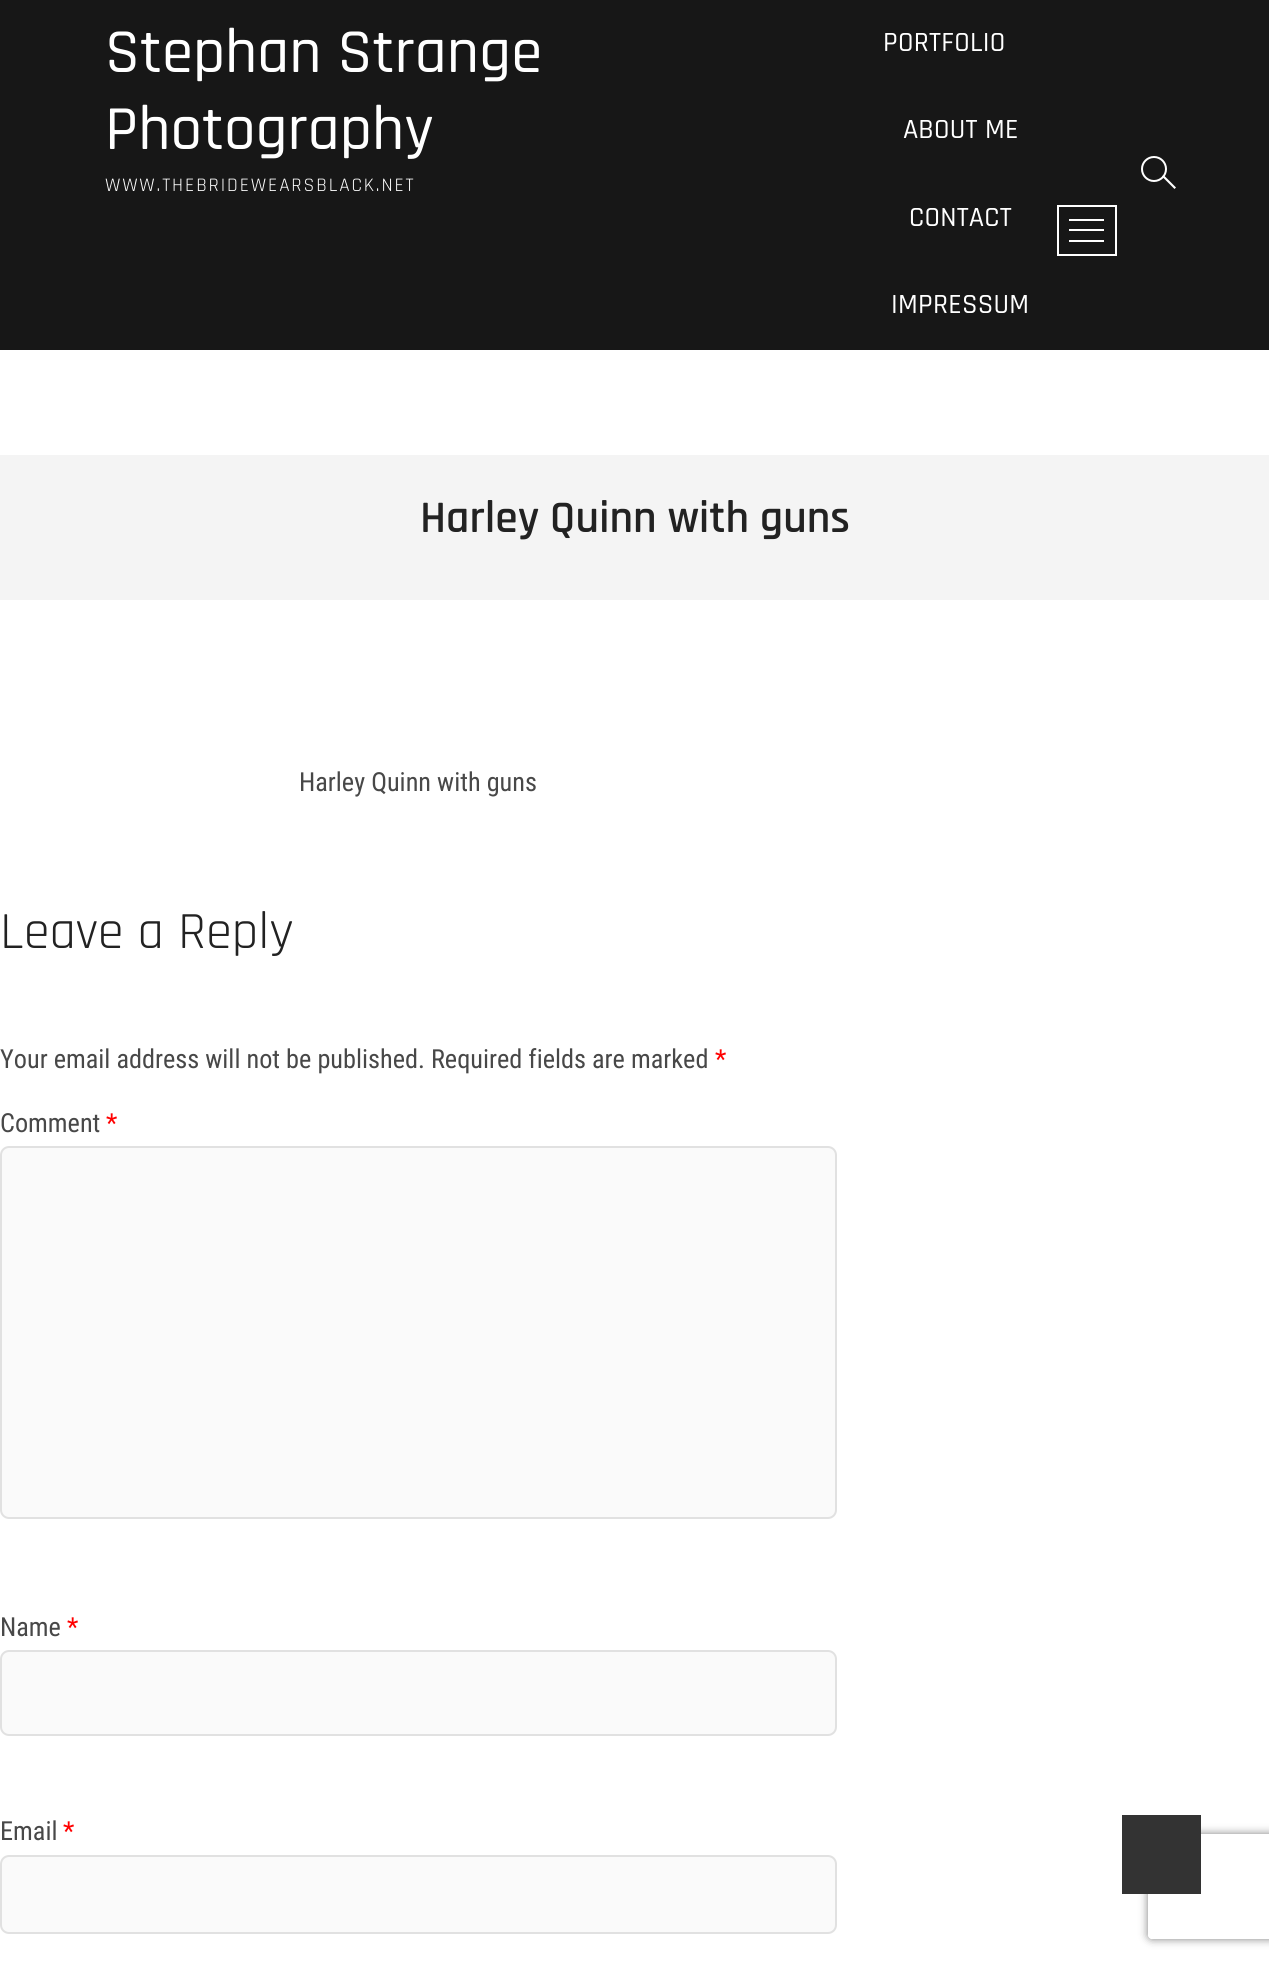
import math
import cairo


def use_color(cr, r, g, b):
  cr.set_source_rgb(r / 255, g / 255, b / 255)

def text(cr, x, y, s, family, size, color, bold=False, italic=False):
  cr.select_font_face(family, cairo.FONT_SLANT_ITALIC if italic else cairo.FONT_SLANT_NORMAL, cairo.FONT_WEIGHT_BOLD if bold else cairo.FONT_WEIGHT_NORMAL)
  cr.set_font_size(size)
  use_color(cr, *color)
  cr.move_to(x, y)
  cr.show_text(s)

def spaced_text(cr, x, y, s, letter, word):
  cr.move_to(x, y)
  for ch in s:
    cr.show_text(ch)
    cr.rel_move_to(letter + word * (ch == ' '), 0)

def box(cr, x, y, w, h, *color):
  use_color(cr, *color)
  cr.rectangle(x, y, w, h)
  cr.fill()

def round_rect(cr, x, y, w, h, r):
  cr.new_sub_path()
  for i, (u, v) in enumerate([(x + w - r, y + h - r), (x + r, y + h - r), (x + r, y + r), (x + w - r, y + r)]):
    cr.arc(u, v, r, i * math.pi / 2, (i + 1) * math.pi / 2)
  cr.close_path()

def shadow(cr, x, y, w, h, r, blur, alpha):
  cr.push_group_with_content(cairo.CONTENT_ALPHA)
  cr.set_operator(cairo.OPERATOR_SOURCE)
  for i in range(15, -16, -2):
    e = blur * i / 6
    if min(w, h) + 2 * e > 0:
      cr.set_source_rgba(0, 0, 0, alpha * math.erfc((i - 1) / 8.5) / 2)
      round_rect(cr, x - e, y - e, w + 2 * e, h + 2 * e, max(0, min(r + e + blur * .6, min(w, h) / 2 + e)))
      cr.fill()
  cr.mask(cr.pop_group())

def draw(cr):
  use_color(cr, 255, 255, 255)
  cr.paint()
  box(cr, 0, 0, 1269, 350, 23, 23, 23)
  cr.arc(1154, 169, 12, 0, 2 * math.pi)
  use_color(cr, 255, 255, 255)
  cr.stroke()
  cr.new_path()
  cr.move_to(1162, 176.5)
  cr.line_to(1163.5, 175)
  cr.line_to(1176, 187.5)
  cr.line_to(1174.5, 189)
  cr.close_path()
  cr.fill()
  cr.rectangle(1058, 206, 58, 49)
  cr.stroke()
  box(cr, 1069, 229, 35, 2, 255, 255, 255)
  box(cr, 1069, 219, 35, 2, 255, 255, 255)
  box(cr, 1069, 240, 35, 2, 255, 255, 255)
  box(cr, 0, 455, 1269, 145, 244, 244, 244)
  use_color(cr, 250, 250, 250)
  round_rect(cr, 1, 1147, 835, 371, 8)
  cr.fill_preserve()
  use_color(cr, 225, 225, 225)
  cr.stroke()
  use_color(cr, 250, 250, 250)
  round_rect(cr, 1, 1651, 835, 84, 8)
  cr.fill_preserve()
  use_color(cr, 225, 225, 225)
  cr.stroke()
  use_color(cr, 250, 250, 250)
  round_rect(cr, 1, 1856, 835, 77, 8)
  cr.fill_preserve()
  use_color(cr, 225, 225, 225)
  cr.stroke()
  cr.save()
  cr.set_fill_rule(cairo.FILL_RULE_EVEN_ODD)
  cr.new_path()
  cr.move_to(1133, 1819)
  cr.line_to(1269, 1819)
  cr.line_to(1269, 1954)
  cr.line_to(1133, 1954)
  cr.close_path()
  cr.move_to(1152, 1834)
  cr.line_to(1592, 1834)
  cr.curve_to(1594, 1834, 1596, 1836, 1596, 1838)
  cr.line_to(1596, 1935)
  cr.curve_to(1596, 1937, 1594, 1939, 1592, 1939)
  cr.line_to(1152, 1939)
  cr.curve_to(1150, 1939, 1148, 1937, 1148, 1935)
  cr.line_to(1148, 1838)
  cr.curve_to(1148, 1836, 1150, 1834, 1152, 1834)
  cr.close_path()
  cr.clip()
  use_color(cr, 128, 128, 128)
  shadow(cr, 1148, 1834, 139, 105, 4, 4.5, 1)
  cr.restore()
  box(cr, 1122, 1815, 79, 79, 51, 51, 51)
  text(cr, 105, 72, "Stephan Strange", "Rajdhani Medium", 63, (255, 255, 255))
  text(cr, 105, 149, "Photography", "Rajdhani Medium", 63, (255, 255, 255))
  cr.select_font_face("Rajdhani")
  cr.set_font_size(19.25)
  spaced_text(cr, 105, 191, "WWW.THEBRIDEWEARSBLACK.NET", 1.9, 0)
  cr.select_font_face("Rajdhani Medium")
  cr.set_font_size(28)
  spaced_text(cr, 883, 51, "PORTFOLIO", 0.25, 0)
  spaced_text(cr, 903, 138, "ABOUT ME", 0.25, 0)
  spaced_text(cr, 909, 226, "CONTACT", 0.25, 0)
  spaced_text(cr, 891, 313, "IMPRESSUM", 0.25, 0)
  text(cr, 420, 532, "Harley Quinn with guns", "Rajdhani SemiBold", 45.5, (34, 34, 34))
  text(cr, 299, 791, "Harley Quinn with guns", "Roboto Condensed", 26.25, (72, 72, 72))
  text(cr, 0, 948, "Leave a Reply", "Rajdhani", 52.5, (34, 34, 34))
  text(cr, 0, 1068, "Your email address will not be published. Required fields are marked", "Roboto Condensed", 26.25, (72, 72, 72))
  text(cr, 715, 1068, "*", "Roboto Condensed", 26.25, (255, 0, 0))
  text(cr, 0, 1132, "Comment", "Roboto Condensed", 26.25, (72, 72, 72))
  text(cr, 106, 1132, "*", "Roboto Condensed", 26.25, (255, 0, 0))
  text(cr, 0, 1636, "Name", "Roboto Condensed", 26.25, (72, 72, 72))
  text(cr, 67, 1636, "*", "Roboto Condensed", 26.25, (255, 0, 0))
  text(cr, 0, 1840, "Email", "Roboto Condensed", 26.25, (72, 72, 72))
  text(cr, 63, 1840, "*", "Roboto Condensed", 26.25, (255, 0, 0))


surface = cairo.ImageSurface(cairo.FORMAT_RGB24, 1269, 1962)
cr = cairo.Context(surface)
options = cairo.FontOptions()
options.set_hint_metrics(cairo.HINT_METRICS_OFF)
options.set_hint_style(cairo.HINT_STYLE_NONE)
cr.set_font_options(options)
cr.set_miter_limit(4)
draw(cr)
surface.write_to_png("out.png")
